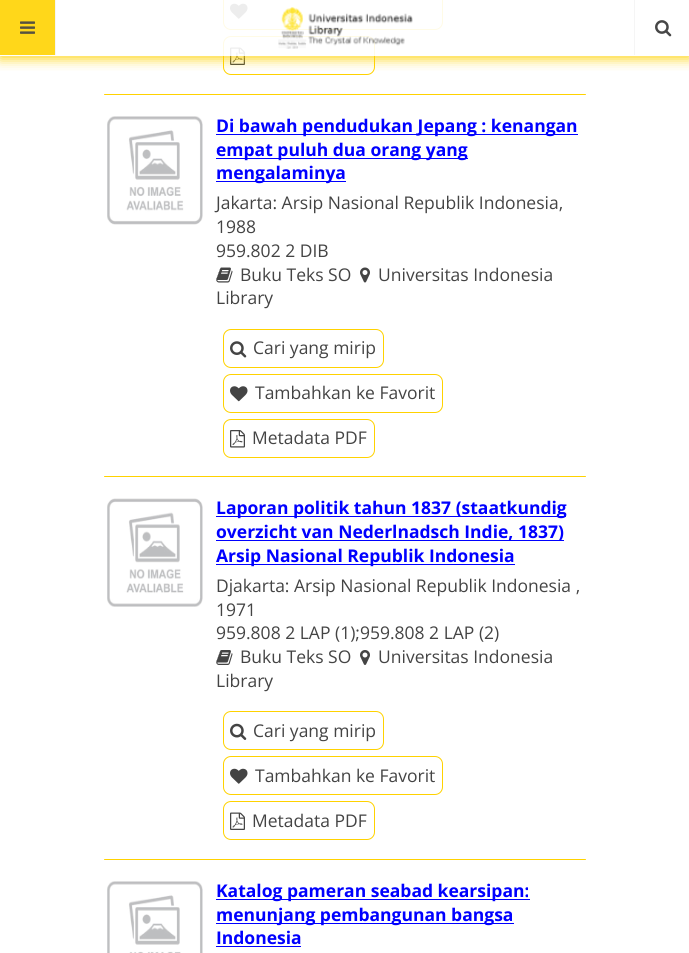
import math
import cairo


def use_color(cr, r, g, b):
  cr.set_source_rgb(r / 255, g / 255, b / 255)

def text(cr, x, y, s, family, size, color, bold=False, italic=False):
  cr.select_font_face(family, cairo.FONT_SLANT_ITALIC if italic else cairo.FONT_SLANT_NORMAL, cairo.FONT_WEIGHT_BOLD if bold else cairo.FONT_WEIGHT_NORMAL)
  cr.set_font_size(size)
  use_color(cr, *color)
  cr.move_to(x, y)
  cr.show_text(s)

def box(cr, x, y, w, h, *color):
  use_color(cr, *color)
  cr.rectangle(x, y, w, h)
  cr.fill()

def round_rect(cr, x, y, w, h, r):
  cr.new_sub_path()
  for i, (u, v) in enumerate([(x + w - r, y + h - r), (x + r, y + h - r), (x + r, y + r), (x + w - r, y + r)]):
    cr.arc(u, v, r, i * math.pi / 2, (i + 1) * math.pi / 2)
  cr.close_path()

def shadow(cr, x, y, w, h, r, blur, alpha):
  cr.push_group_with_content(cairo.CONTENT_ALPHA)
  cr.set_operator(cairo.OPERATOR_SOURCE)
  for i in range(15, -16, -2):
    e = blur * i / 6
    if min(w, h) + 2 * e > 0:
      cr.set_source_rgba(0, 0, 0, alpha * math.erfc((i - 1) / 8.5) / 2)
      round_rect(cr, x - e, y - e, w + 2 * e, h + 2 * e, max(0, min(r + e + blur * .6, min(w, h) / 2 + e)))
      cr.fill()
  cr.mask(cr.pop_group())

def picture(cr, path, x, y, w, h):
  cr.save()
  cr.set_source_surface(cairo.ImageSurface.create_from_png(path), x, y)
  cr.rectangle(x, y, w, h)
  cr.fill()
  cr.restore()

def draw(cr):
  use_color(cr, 255, 255, 255)
  cr.paint()
  round_rect(cr, 223.5, -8.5, 219, 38, 7.5)
  use_color(cr, 255, 210, 0)
  cr.set_line_width(1)
  cr.stroke()
  picture(cr, "img_04.png", 230, 3, 18, 16)
  round_rect(cr, 223.5, 36.5, 151, 38, 7.5)
  cr.stroke()
  picture(cr, "img_05.png", 230, 47, 15, 18)
  cr.save()
  cr.rectangle(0, 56, 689, 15)
  cr.clip()
  use_color(cr, 255, 210, 0)
  shadow(cr, 0, 3, 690, 56, 0, 6, 0.9)
  cr.restore()
  cr.set_source_rgba(1, 1, 1, 0.9)
  cr.rectangle(223, 0, 220, 56)
  cr.fill()
  box(cr, 0, 0, 55, 55, 255, 215, 26)
  box(cr, 55, 0, 1, 55, 245, 245, 245)
  picture(cr, "img_01.png", 20, 21, 15, 13)
  picture(cr, "img_02.png", 278, 7, 135, 42)
  box(cr, 634, 0, 1, 55, 245, 245, 245)
  picture(cr, "img_03.png", 655, 20, 17, 17)
  use_color(cr, 255, 210, 0)
  round_rect(cr, 104, 94, 482, 1, 0.5)
  cr.fill()
  picture(cr, "img_06.png", 107, 116, 96, 109)
  box(cr, 216, 134, 362, 1, 0, 0, 255)
  box(cr, 216, 158, 252, 1, 0, 0, 255)
  box(cr, 216, 181, 130, 1, 0, 0, 255)
  picture(cr, "img_07.png", 216, 267, 17, 16)
  picture(cr, "img_08.png", 360, 267, 10, 16)
  round_rect(cr, 223.5, 329.5, 160, 38, 7.5)
  use_color(cr, 255, 210, 0)
  cr.stroke()
  picture(cr, "img_09.png", 230, 341, 17, 17)
  round_rect(cr, 223.5, 374.5, 219, 38, 7.5)
  cr.stroke()
  picture(cr, "img_10.png", 230, 386, 18, 16)
  round_rect(cr, 223.5, 419.5, 151, 38, 7.5)
  cr.stroke()
  picture(cr, "img_11.png", 230, 430, 15, 18)
  round_rect(cr, 104, 476, 482, 1, 0.5)
  cr.fill()
  picture(cr, "img_12.png", 107, 498, 96, 109)
  box(cr, 216, 516, 350, 1, 0, 0, 255)
  box(cr, 216, 540, 348, 1, 0, 0, 255)
  box(cr, 216, 564, 299, 1, 0, 0, 255)
  picture(cr, "img_13.png", 360, 650, 10, 15)
  picture(cr, "img_14.png", 216, 650, 17, 15)
  round_rect(cr, 223.5, 711.5, 160, 38, 7.5)
  use_color(cr, 255, 210, 0)
  cr.stroke()
  picture(cr, "img_15.png", 230, 723, 17, 17)
  round_rect(cr, 223.5, 756.5, 219, 38, 7.5)
  cr.stroke()
  picture(cr, "img_04.png", 230, 768, 18, 16)
  round_rect(cr, 223.5, 801.5, 151, 38, 7.5)
  cr.stroke()
  picture(cr, "img_05.png", 230, 812, 15, 18)
  round_rect(cr, 104, 859, 482, 1, 0.5)
  cr.fill()
  picture(cr, "img_16.png", 107, 881, 96, 72)
  box(cr, 216, 899, 314, 1, 0, 0, 255)
  box(cr, 216, 923, 298, 1, 0, 0, 255)
  box(cr, 216, 946, 85, 1, 0, 0, 255)
  text(cr, 216, 132, "Di bawah pendudukan Jepang : kenangan", "Open Sans", 17.5, (0, 0, 255), bold=True)
  text(cr, 216, 156, "empat puluh dua orang yang", "Open Sans", 17.5, (0, 0, 255), bold=True)
  text(cr, 216, 179, "mengalaminya", "Open Sans", 17.5, (0, 0, 255), bold=True)
  text(cr, 216, 209, "Jakarta: Arsip Nasional Republik Indonesia,", "Open Sans", 17.5, (68, 68, 68))
  text(cr, 216, 233, "1988", "Open Sans", 17.5, (68, 68, 68))
  text(cr, 216, 257, "959.802 2 DIB", "Open Sans", 17.5, (68, 68, 68))
  text(cr, 240, 281, "Buku Teks SO", "Open Sans", 17.5, (68, 68, 68))
  text(cr, 378, 281, "Universitas Indonesia", "Open Sans", 17.5, (68, 68, 68))
  text(cr, 216, 304, "Library", "Open Sans", 17.5, (68, 68, 68))
  text(cr, 253, 354, "Cari yang mirip", "Open Sans", 17.5, (68, 68, 68))
  text(cr, 255, 399, "Tambahkan ke Favorit", "Open Sans", 17.5, (68, 68, 68))
  text(cr, 252, 444, "Metadata PDF", "Open Sans", 17.5, (68, 68, 68))
  text(cr, 216, 514, "Laporan politik tahun 1837 (staatkundig", "Open Sans", 17.5, (0, 0, 255), bold=True)
  text(cr, 216, 538, "overzicht van Nederlnadsch Indie, 1837)", "Open Sans", 17.5, (0, 0, 255), bold=True)
  text(cr, 216, 562, "Arsip Nasional Republik Indonesia", "Open Sans", 17.5, (0, 0, 255), bold=True)
  text(cr, 216, 592, "Djakarta: Arsip Nasional Republik Indonesia ,", "Open Sans", 17.5, (68, 68, 68))
  text(cr, 216, 616, "1971", "Open Sans", 17.5, (68, 68, 68))
  text(cr, 216, 639, "959.808 2 LAP (1);959.808 2 LAP (2)", "Open Sans", 17.5, (68, 68, 68))
  text(cr, 240, 663, "Buku Teks SO", "Open Sans", 17.5, (68, 68, 68))
  text(cr, 378, 663, "Universitas Indonesia", "Open Sans", 17.5, (68, 68, 68))
  text(cr, 216, 687, "Library", "Open Sans", 17.5, (68, 68, 68))
  text(cr, 253, 737, "Cari yang mirip", "Open Sans", 17.5, (68, 68, 68))
  text(cr, 255, 782, "Tambahkan ke Favorit", "Open Sans", 17.5, (68, 68, 68))
  text(cr, 252, 827, "Metadata PDF", "Open Sans", 17.5, (68, 68, 68))
  text(cr, 216, 897, "Katalog pameran seabad kearsipan:", "Open Sans", 17.5, (0, 0, 255), bold=True)
  text(cr, 216, 921, "menunjang pembangunan bangsa", "Open Sans", 17.5, (0, 0, 255), bold=True)
  text(cr, 216, 944, "Indonesia", "Open Sans", 17.5, (0, 0, 255), bold=True)


surface = cairo.ImageSurface(cairo.FORMAT_RGB24, 689, 953)
cr = cairo.Context(surface)
options = cairo.FontOptions()
options.set_hint_metrics(cairo.HINT_METRICS_OFF)
options.set_hint_style(cairo.HINT_STYLE_NONE)
cr.set_font_options(options)
cr.set_miter_limit(4)
draw(cr)
surface.write_to_png("out.png")
